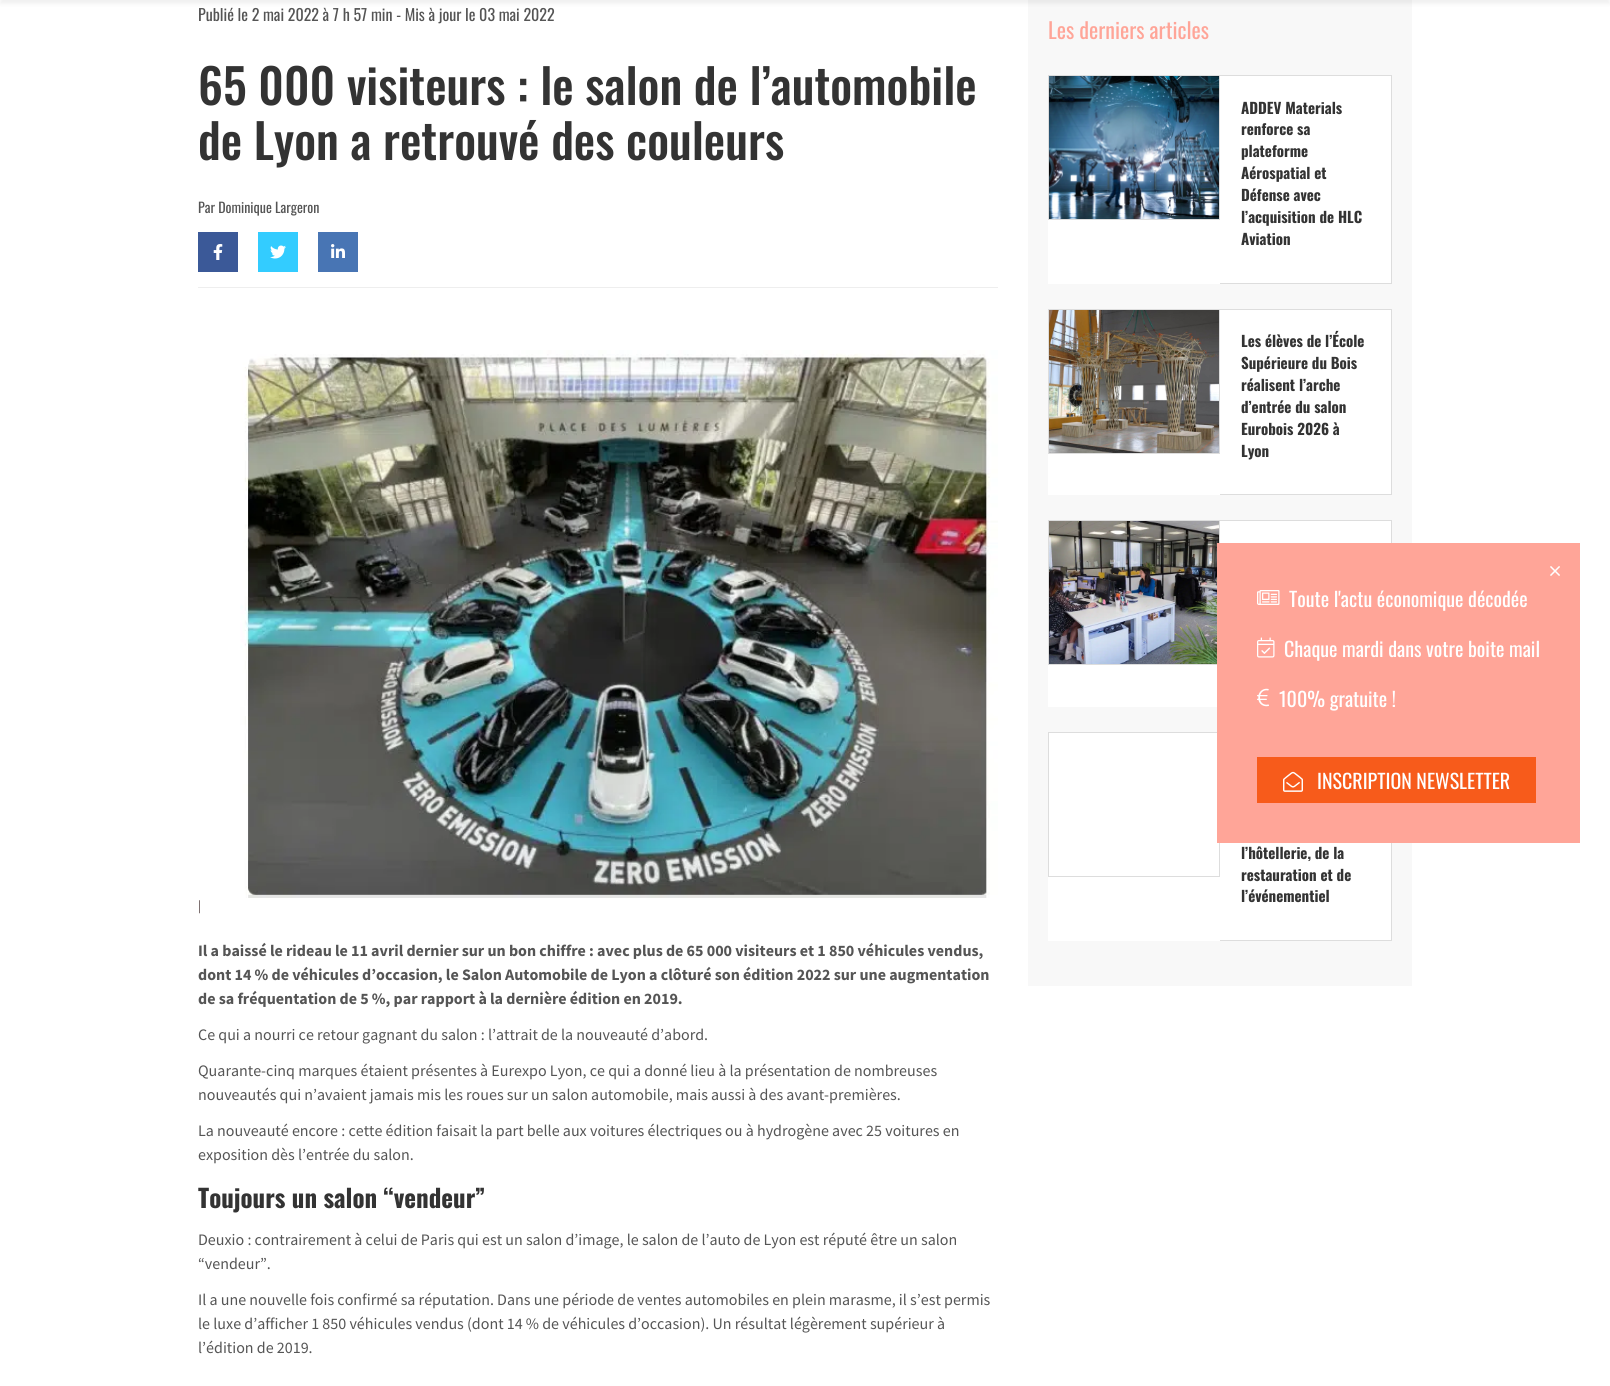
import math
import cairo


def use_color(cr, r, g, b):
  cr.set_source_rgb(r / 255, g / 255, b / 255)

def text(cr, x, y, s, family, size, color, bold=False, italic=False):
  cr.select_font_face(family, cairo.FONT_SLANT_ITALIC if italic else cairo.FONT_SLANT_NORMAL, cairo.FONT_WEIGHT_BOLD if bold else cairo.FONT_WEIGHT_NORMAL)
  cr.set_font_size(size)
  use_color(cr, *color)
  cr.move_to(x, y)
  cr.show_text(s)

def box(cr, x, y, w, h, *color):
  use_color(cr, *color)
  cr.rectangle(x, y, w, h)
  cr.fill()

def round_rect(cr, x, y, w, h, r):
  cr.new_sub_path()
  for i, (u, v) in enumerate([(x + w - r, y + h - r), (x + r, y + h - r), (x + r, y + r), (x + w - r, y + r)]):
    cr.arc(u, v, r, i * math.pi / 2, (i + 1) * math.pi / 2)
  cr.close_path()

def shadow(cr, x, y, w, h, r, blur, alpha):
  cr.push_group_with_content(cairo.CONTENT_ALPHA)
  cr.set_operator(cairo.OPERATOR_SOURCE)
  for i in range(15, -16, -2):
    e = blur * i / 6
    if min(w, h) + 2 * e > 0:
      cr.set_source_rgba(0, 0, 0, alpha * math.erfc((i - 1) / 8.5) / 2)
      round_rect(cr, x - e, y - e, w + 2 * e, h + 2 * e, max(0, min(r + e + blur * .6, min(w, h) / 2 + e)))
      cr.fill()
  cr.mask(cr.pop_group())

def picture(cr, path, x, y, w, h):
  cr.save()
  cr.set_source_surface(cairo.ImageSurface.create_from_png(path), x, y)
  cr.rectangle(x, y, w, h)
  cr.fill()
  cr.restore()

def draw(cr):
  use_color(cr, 255, 255, 255)
  cr.paint()
  box(cr, 1028, 0, 384, 986, 248, 248, 248)
  use_color(cr, 0, 0, 0)
  shadow(cr, 0, -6, 1610, 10, 0, 2, 0.06)
  box(cr, 198, 287, 800, 1, 238, 238, 238)
  box(cr, 198, 232, 40, 40, 59, 89, 152)
  picture(cr, "img_01.png", 213, 244, 10, 16)
  box(cr, 258, 232, 40, 40, 51, 204, 255)
  picture(cr, "img_02.png", 270, 245, 16, 14)
  box(cr, 318, 232, 40, 40, 72, 117, 180)
  picture(cr, "img_03.png", 331, 244, 14, 14)
  picture(cr, "img_04.png", 240, 350, 758, 548)
  box(cr, 1048, 76, 343, 208, 255, 255, 255)
  picture(cr, "img_05.png", 1049, 76, 170, 143)
  cr.rectangle(1048.5, 75.5, 171, 144)
  use_color(cr, 221, 221, 221)
  cr.set_line_width(1)
  cr.stroke()
  box(cr, 1220, 75, 172, 1, 221, 221, 221)
  box(cr, 1391, 75, 1, 209, 221, 221, 221)
  box(cr, 1220, 283, 172, 1, 221, 221, 221)
  box(cr, 1048, 310, 343, 185, 255, 255, 255)
  picture(cr, "img_06.png", 1049, 310, 170, 143)
  cr.rectangle(1048.5, 309.5, 171, 144)
  use_color(cr, 221, 221, 221)
  cr.stroke()
  box(cr, 1220, 309, 172, 1, 221, 221, 221)
  box(cr, 1391, 309, 1, 186, 221, 221, 221)
  box(cr, 1220, 494, 172, 1, 221, 221, 221)
  box(cr, 1048, 521, 343, 186, 255, 255, 255)
  picture(cr, "img_07.png", 1049, 521, 170, 143)
  cr.rectangle(1048.5, 520.5, 171, 144)
  use_color(cr, 221, 221, 221)
  cr.stroke()
  box(cr, 1220, 520, 172, 1, 221, 221, 221)
  box(cr, 1391, 520, 1, 23, 221, 221, 221)
  box(cr, 1048, 733, 343, 208, 255, 255, 255)
  cr.rectangle(1048.5, 732.5, 171, 144)
  use_color(cr, 221, 221, 221)
  cr.stroke()
  box(cr, 1391, 843, 1, 98, 221, 221, 221)
  box(cr, 1220, 940, 172, 1, 221, 221, 221)
  box(cr, 1217, 543, 363, 300, 255, 165, 152)
  picture(cr, "img_08.png", 1550, 566, 10, 10)
  picture(cr, "img_09.png", 1257, 590, 23, 15)
  picture(cr, "img_10.png", 1257, 637, 18, 21)
  picture(cr, "img_11.png", 1257, 688, 12, 19)
  box(cr, 1257, 757, 279, 46, 247, 91, 27)
  picture(cr, "img_12.png", 1283, 771, 20, 21)
  text(cr, 198, 21, "Publié le 2 mai 2022 à 7 h 57 min - Mis à jour le 03 mai 2022", "Oswald", 16, (85, 85, 85))
  text(cr, 198, 105, "65 000 visiteurs : le salon de l’automobile", "Oswald Medium", 48, (51, 51, 51))
  text(cr, 198, 160, "de Lyon a retrouvé des couleurs", "Oswald Medium", 48, (51, 51, 51))
  text(cr, 198, 213, "Par Dominique Largeron", "Oswald", 14, (85, 85, 85))
  text(cr, 198, 910, "|", "Source Sans Pro", 13, (84, 66, 66))
  text(cr, 198, 956, "Il a baissé le rideau le 11 avril dernier sur un bon chiffre : avec plus de 65 000 visiteurs et 1 850 véhicules vendus,", "Source Sans Pro", 16, (85, 85, 85), bold=True)
  text(cr, 198, 980, "dont 14 % de véhicules d’occasion, le Salon Automobile de Lyon a clôturé son édition 2022 sur une augmentation", "Source Sans Pro", 16, (85, 85, 85), bold=True)
  text(cr, 198, 1004, "de sa fréquentation de 5 %, par rapport à la dernière édition en 2019.", "Source Sans Pro", 16, (85, 85, 85), bold=True)
  text(cr, 198, 1040, "Ce qui a nourri ce retour gagnant du salon : l’attrait de la nouveauté d’abord.", "Source Sans Pro", 16, (85, 85, 85))
  text(cr, 198, 1076, "Quarante-cinq marques étaient présentes à Eurexpo Lyon, ce qui a donné lieu à la présentation de nombreuses", "Source Sans Pro", 16, (85, 85, 85))
  text(cr, 198, 1100, "nouveautés qui n’avaient jamais mis les roues sur un salon automobile, mais aussi à des avant-premières.", "Source Sans Pro", 16, (85, 85, 85))
  text(cr, 198, 1136, "La nouveauté encore : cette édition faisait la part belle aux voitures électriques ou à hydrogène avec 25 voitures en", "Source Sans Pro", 16, (85, 85, 85))
  text(cr, 198, 1160, "exposition dès l’entrée du salon.", "Source Sans Pro", 16, (85, 85, 85))
  text(cr, 198, 1208, "Toujours un salon “vendeur”", "Oswald", 25, (51, 51, 51), bold=True)
  text(cr, 198, 1245, "Deuxio : contrairement à celui de Paris qui est un salon d’image, le salon de l’auto de Lyon est réputé être un salon", "Source Sans Pro", 16, (85, 85, 85))
  text(cr, 198, 1269, "“vendeur”.", "Source Sans Pro", 16, (85, 85, 85))
  text(cr, 198, 1305, "Il a une nouvelle fois confirmé sa réputation. Dans une période de ventes automobiles en plein marasme, il s’est permis", "Source Sans Pro", 16, (85, 85, 85))
  text(cr, 198, 1329, "le luxe d’afficher 1 850 véhicules vendus (dont 14 % de véhicules d’occasion). Un résultat légèrement supérieur à", "Source Sans Pro", 16, (85, 85, 85))
  text(cr, 198, 1353, "l’édition de 2019.", "Source Sans Pro", 16, (85, 85, 85))
  text(cr, 1048, 39, "Les derniers articles", "Oswald", 22, (255, 165, 152))
  text(cr, 1241, 114, "ADDEV Materials", "Oswald", 15, (51, 51, 51), bold=True)
  text(cr, 1241, 135, "renforce sa", "Oswald", 15, (51, 51, 51), bold=True)
  text(cr, 1241, 157, "plateforme", "Oswald", 15, (51, 51, 51), bold=True)
  text(cr, 1241, 179, "Aérospatial et", "Oswald", 15, (51, 51, 51), bold=True)
  text(cr, 1241, 201, "Défense avec", "Oswald", 15, (51, 51, 51), bold=True)
  text(cr, 1241, 223, "l’acquisition de HLC", "Oswald", 15, (51, 51, 51), bold=True)
  text(cr, 1241, 245, "Aviation", "Oswald", 15, (51, 51, 51), bold=True)
  text(cr, 1241, 347, "Les élèves de l’École", "Oswald", 15, (51, 51, 51), bold=True)
  text(cr, 1241, 369, "Supérieure du Bois", "Oswald", 15, (51, 51, 51), bold=True)
  text(cr, 1241, 391, "réalisent l’arche", "Oswald", 15, (51, 51, 51), bold=True)
  text(cr, 1241, 413, "d’entrée du salon", "Oswald", 15, (51, 51, 51), bold=True)
  text(cr, 1241, 435, "Eurobois 2026 à", "Oswald", 15, (51, 51, 51), bold=True)
  text(cr, 1241, 457, "Lyon", "Oswald", 15, (51, 51, 51), bold=True)
  text(cr, 1241, 859, "l’hôtellerie, de la", "Oswald", 15, (51, 51, 51), bold=True)
  text(cr, 1241, 881, "restauration et de", "Oswald", 15, (51, 51, 51), bold=True)
  text(cr, 1241, 902, "l’événementiel", "Oswald", 15, (51, 51, 51), bold=True)
  text(cr, 1289, 607, "Toute l'actu économique décodée", "Oswald", 20, (255, 255, 255))
  text(cr, 1284, 657, "Chaque mardi dans votre boite mail", "Oswald", 20, (255, 255, 255))
  text(cr, 1279, 707, "100% gratuite !", "Oswald", 20, (255, 255, 255))
  text(cr, 1317, 789, "INSCRIPTION NEWSLETTER", "Oswald", 20, (255, 255, 255))


surface = cairo.ImageSurface(cairo.FORMAT_RGB24, 1610, 1386)
cr = cairo.Context(surface)
options = cairo.FontOptions()
options.set_hint_metrics(cairo.HINT_METRICS_OFF)
options.set_hint_style(cairo.HINT_STYLE_NONE)
cr.set_font_options(options)
cr.set_miter_limit(4)
draw(cr)
surface.write_to_png("out.png")
